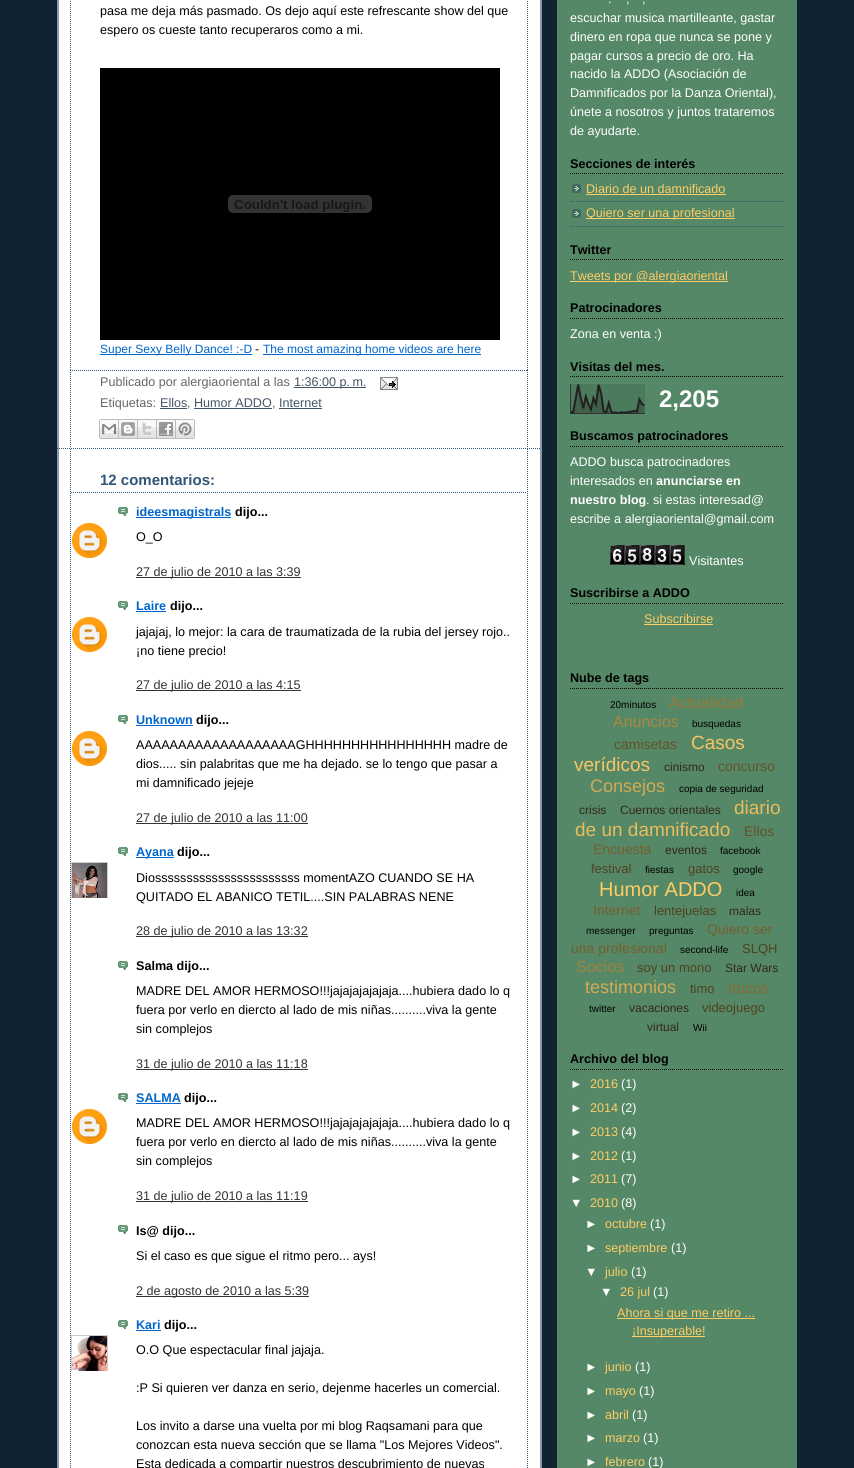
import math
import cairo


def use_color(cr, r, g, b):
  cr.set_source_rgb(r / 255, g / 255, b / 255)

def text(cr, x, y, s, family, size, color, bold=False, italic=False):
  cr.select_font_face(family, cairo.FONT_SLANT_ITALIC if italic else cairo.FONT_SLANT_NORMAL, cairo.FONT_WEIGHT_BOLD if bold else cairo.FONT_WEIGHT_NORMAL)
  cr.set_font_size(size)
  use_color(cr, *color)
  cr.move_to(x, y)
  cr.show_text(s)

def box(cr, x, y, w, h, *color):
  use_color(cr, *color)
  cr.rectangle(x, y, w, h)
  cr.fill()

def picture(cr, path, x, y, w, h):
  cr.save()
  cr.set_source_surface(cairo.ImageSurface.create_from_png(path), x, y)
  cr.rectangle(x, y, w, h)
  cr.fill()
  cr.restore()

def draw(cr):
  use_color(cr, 17, 34, 51)
  cr.paint()
  box(cr, 59, 0, 481, 1468, 255, 255, 255)
  picture(cr, "img_01.png", 57, 0, 485, 1468)
  cr.new_path()
  cr.move_to(57, 448.5)
  cr.line_to(541, 448.5)
  use_color(cr, 51, 85, 119)
  cr.set_line_width(1)
  cr.set_dash([1, 1])
  cr.stroke()
  cr.new_path()
  cr.move_to(527.5, -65)
  cr.line_to(527.5, 370)
  cr.stroke()
  cr.new_path()
  cr.move_to(70.5, -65)
  cr.line_to(70.5, 370)
  cr.stroke()
  box(cr, 100, 68, 400, 272, 0, 0, 0)
  picture(cr, "img_02.png", 228, 195, 144, 18)
  box(cr, 100, 354, 152, 1, 0, 102, 204)
  box(cr, 263, 354, 218, 1, 0, 102, 204)
  cr.new_path()
  cr.move_to(70, 370.5)
  cr.line_to(528, 370.5)
  use_color(cr, 51, 85, 119)
  cr.stroke()
  cr.new_path()
  cr.move_to(527.5, 370)
  cr.line_to(527.5, 448)
  cr.stroke()
  cr.new_path()
  cr.move_to(70.5, 370)
  cr.line_to(70.5, 448)
  cr.stroke()
  cr.new_path()
  cr.move_to(293.5, 387.5)
  cr.line_to(366, 387.5)
  use_color(cr, 68, 85, 102)
  cr.stroke()
  box(cr, 294, 387, 72, 1, 68, 85, 102)
  picture(cr, "img_03.png", 380, 377, 18, 13)
  box(cr, 160, 408, 27, 1, 68, 85, 102)
  box(cr, 194, 408, 78, 1, 68, 85, 102)
  box(cr, 279, 408, 43, 1, 68, 85, 102)
  picture(cr, "img_04.png", 99, 419, 20, 20)
  picture(cr, "img_05.png", 119, 419, 19, 20)
  picture(cr, "img_06.png", 138, 419, 19, 20)
  picture(cr, "img_07.png", 157, 419, 19, 20)
  picture(cr, "img_08.png", 176, 419, 19, 20)
  cr.new_path()
  cr.move_to(527.5, 449)
  cr.line_to(527.5, 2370)
  use_color(cr, 51, 85, 119)
  cr.stroke()
  cr.new_path()
  cr.move_to(70.5, 449)
  cr.line_to(70.5, 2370)
  cr.stroke()
  cr.new_path()
  cr.move_to(71, 492.5)
  cr.line_to(527, 492.5)
  cr.stroke()
  picture(cr, "img_09.png", 118, 507, 10, 9)
  box(cr, 136, 517, 95, 1, 0, 102, 204)
  picture(cr, "img_10.png", 72, 523, 35, 35)
  box(cr, 136, 577, 165, 1, 51, 51, 51)
  picture(cr, "img_09.png", 118, 601, 10, 9)
  box(cr, 136, 611, 30, 1, 0, 102, 204)
  picture(cr, "img_10.png", 72, 617, 35, 35)
  box(cr, 136, 690, 165, 1, 51, 51, 51)
  picture(cr, "img_09.png", 118, 715, 10, 9)
  box(cr, 136, 725, 57, 1, 0, 102, 204)
  picture(cr, "img_10.png", 72, 731, 35, 35)
  box(cr, 136, 823, 172, 1, 51, 51, 51)
  picture(cr, "img_09.png", 118, 847, 10, 9)
  box(cr, 136, 857, 38, 1, 0, 102, 204)
  cr.save()
  cr.rectangle(71, 862, 37, 36)
  cr.clip()
  cr.rectangle(71.5, 862.5, 36, 36)
  use_color(cr, 204, 204, 204)
  cr.set_dash([])
  cr.stroke()
  cr.restore()
  picture(cr, "img_11.png", 72, 863, 35, 35)
  box(cr, 136, 936, 172, 1, 51, 51, 51)
  picture(cr, "img_09.png", 118, 961, 10, 9)
  box(cr, 136, 1069, 172, 1, 51, 51, 51)
  picture(cr, "img_09.png", 118, 1093, 10, 9)
  box(cr, 136, 1103, 45, 1, 0, 102, 204)
  picture(cr, "img_10.png", 72, 1109, 35, 35)
  box(cr, 136, 1201, 172, 1, 51, 51, 51)
  picture(cr, "img_09.png", 118, 1225, 10, 9)
  box(cr, 136, 1296, 173, 1, 51, 51, 51)
  picture(cr, "img_09.png", 118, 1320, 10, 9)
  box(cr, 136, 1330, 25, 1, 0, 102, 204)
  cr.save()
  cr.rectangle(71, 1335, 37, 36)
  cr.clip()
  cr.rectangle(71.5, 1335.5, 36, 36)
  use_color(cr, 204, 204, 204)
  cr.set_dash([])
  cr.stroke()
  cr.restore()
  picture(cr, "img_12.png", 72, 1336, 35, 35)
  box(cr, 557, 0, 240, 1468, 85, 136, 102)
  cr.new_path()
  cr.move_to(570, 173.5)
  cr.line_to(784, 173.5)
  use_color(cr, 0, 0, 0)
  cr.stroke()
  picture(cr, "img_13.png", 572, 184, 9, 9)
  cr.new_path()
  cr.move_to(570, 201.5)
  cr.line_to(784, 201.5)
  use_color(cr, 51, 85, 119)
  cr.stroke()
  box(cr, 586, 194, 140, 1, 255, 204, 102)
  picture(cr, "img_13.png", 572, 209, 9, 9)
  cr.new_path()
  cr.move_to(570, 226.5)
  cr.line_to(784, 226.5)
  use_color(cr, 51, 85, 119)
  cr.stroke()
  box(cr, 586, 218, 149, 1, 255, 204, 102)
  cr.new_path()
  cr.move_to(570, 259.5)
  cr.line_to(784, 259.5)
  use_color(cr, 0, 0, 0)
  cr.stroke()
  box(cr, 570, 281, 158, 1, 255, 204, 102)
  cr.new_path()
  cr.move_to(570, 318.5)
  cr.line_to(784, 318.5)
  use_color(cr, 0, 0, 0)
  cr.stroke()
  cr.new_path()
  cr.move_to(570, 376.5)
  cr.line_to(784, 376.5)
  cr.stroke()
  picture(cr, "img_14.png", 570, 384, 75, 30)
  cr.new_path()
  cr.move_to(570, 446.5)
  cr.line_to(784, 446.5)
  cr.stroke()
  picture(cr, "img_15.png", 610, 545, 75, 20)
  cr.new_path()
  cr.move_to(570, 603.5)
  cr.line_to(784, 603.5)
  cr.stroke()
  box(cr, 644, 624, 69, 1, 255, 204, 102)
  cr.new_path()
  cr.move_to(570, 688.5)
  cr.line_to(784, 688.5)
  use_color(cr, 0, 0, 0)
  cr.stroke()
  cr.new_path()
  cr.move_to(570, 1069.5)
  cr.line_to(784, 1069.5)
  cr.stroke()
  box(cr, 617, 1318, 138, 1, 255, 204, 102)
  box(cr, 632, 1336, 73, 1, 255, 204, 102)
  text(cr, 100, 15, "pasa me deja más pasmado. Os dejo aquí este refrescante show del que", "Liberation Sans", 12.6, (0, 0, 0))
  text(cr, 100, 34, "espero os cueste tanto recuperaros como a mi.", "Liberation Sans", 12.6, (0, 0, 0))
  text(cr, 100, 353, "Super Sexy Belly Dance! :-D", "Liberation Sans", 12, (0, 102, 204))
  text(cr, 255, 353, "-", "Liberation Sans", 12, (0, 0, 0))
  text(cr, 263, 353, "The most amazing home videos are here", "Liberation Sans", 12, (0, 102, 204))
  text(cr, 100, 386, "Publicado por alergiaoriental a las", "Liberation Sans", 12.6, (102, 102, 102))
  text(cr, 294, 386, "1:36:00 p. m.", "Liberation Sans", 12.6, (68, 85, 102))
  text(cr, 100, 407, "Etiquetas:", "Liberation Sans", 12.6, (102, 102, 102))
  text(cr, 160, 407, "Ellos", "Liberation Sans", 12.6, (68, 85, 102))
  text(cr, 187, 407, ",", "Liberation Sans", 12.6, (102, 102, 102))
  text(cr, 194, 407, "Humor ADDO", "Liberation Sans", 12.6, (68, 85, 102))
  text(cr, 272, 407, ",", "Liberation Sans", 12.6, (102, 102, 102))
  text(cr, 279, 407, "Internet", "Liberation Sans", 12.6, (68, 85, 102))
  text(cr, 100, 485, "12 comentarios:", "Liberation Sans", 15, (51, 85, 119), bold=True)
  text(cr, 136, 516, "ideesmagistrals", "Liberation Sans", 12.6, (0, 102, 204), bold=True)
  text(cr, 235, 516, "dijo...", "Liberation Sans", 12.6, (0, 0, 0), bold=True)
  text(cr, 136, 541, "O_O", "Liberation Sans", 12.6, (0, 0, 0))
  text(cr, 136, 576, "27 de julio de 2010 a las 3:39", "Liberation Sans", 12.6, (51, 51, 51))
  text(cr, 136, 610, "Laire", "Liberation Sans", 12.6, (0, 102, 204), bold=True)
  text(cr, 170, 610, "dijo...", "Liberation Sans", 12.6, (0, 0, 0), bold=True)
  text(cr, 136, 636, "jajajaj, lo mejor: la cara de traumatizada de la rubia del jersey rojo..", "Liberation Sans", 12.6, (0, 0, 0))
  text(cr, 136, 655, "¡no tiene precio!", "Liberation Sans", 12.6, (0, 0, 0))
  text(cr, 136, 689, "27 de julio de 2010 a las 4:15", "Liberation Sans", 12.6, (51, 51, 51))
  text(cr, 136, 724, "Unknown", "Liberation Sans", 12.6, (0, 102, 204), bold=True)
  text(cr, 196, 724, "dijo...", "Liberation Sans", 12.6, (0, 0, 0), bold=True)
  text(cr, 136, 749, "AAAAAAAAAAAAAAAAAAAGHHHHHHHHHHHHHHHH madre de", "Liberation Sans", 12.6, (0, 0, 0))
  text(cr, 136, 768, "dios..... sin palabritas que me ha dejado. se lo tengo que pasar a", "Liberation Sans", 12.6, (0, 0, 0))
  text(cr, 136, 787, "mi damnificado jejeje", "Liberation Sans", 12.6, (0, 0, 0))
  text(cr, 136, 822, "27 de julio de 2010 a las 11:00", "Liberation Sans", 12.6, (51, 51, 51))
  text(cr, 136, 856, "Ayana", "Liberation Sans", 12.6, (0, 102, 204), bold=True)
  text(cr, 177, 856, "dijo...", "Liberation Sans", 12.6, (0, 0, 0), bold=True)
  text(cr, 136, 882, "Diosssssssssssssssssssssss momentAZO CUANDO SE HA", "Liberation Sans", 12.6, (0, 0, 0))
  text(cr, 136, 901, "QUITADO EL ABANICO TETIL....SIN PALABRAS NENE", "Liberation Sans", 12.6, (0, 0, 0))
  text(cr, 136, 935, "28 de julio de 2010 a las 13:32", "Liberation Sans", 12.6, (51, 51, 51))
  text(cr, 136, 970, "Salma dijo...", "Liberation Sans", 12.6, (0, 0, 0), bold=True)
  text(cr, 136, 995, "MADRE DEL AMOR HERMOSO!!!jajajajajajaja....hubiera dado lo q", "Liberation Sans", 12.6, (0, 0, 0))
  text(cr, 136, 1014, "fuera por verlo en diercto al lado de mis niñas..........viva la gente", "Liberation Sans", 12.6, (0, 0, 0))
  text(cr, 136, 1033, "sin complejos", "Liberation Sans", 12.6, (0, 0, 0))
  text(cr, 136, 1068, "31 de julio de 2010 a las 11:18", "Liberation Sans", 12.6, (51, 51, 51))
  text(cr, 136, 1102, "SALMA", "Liberation Sans", 12.6, (0, 102, 204), bold=True)
  text(cr, 184, 1102, "dijo...", "Liberation Sans", 12.6, (0, 0, 0), bold=True)
  text(cr, 136, 1127, "MADRE DEL AMOR HERMOSO!!!jajajajajajaja....hubiera dado lo q", "Liberation Sans", 12.6, (0, 0, 0))
  text(cr, 136, 1146, "fuera por verlo en diercto al lado de mis niñas..........viva la gente", "Liberation Sans", 12.6, (0, 0, 0))
  text(cr, 136, 1165, "sin complejos", "Liberation Sans", 12.6, (0, 0, 0))
  text(cr, 136, 1200, "31 de julio de 2010 a las 11:19", "Liberation Sans", 12.6, (51, 51, 51))
  text(cr, 136, 1235, "Is@ dijo...", "Liberation Sans", 12.6, (0, 0, 0), bold=True)
  text(cr, 136, 1260, "Si el caso es que sigue el ritmo pero... ays!", "Liberation Sans", 12.6, (0, 0, 0))
  text(cr, 136, 1295, "2 de agosto de 2010 a las 5:39", "Liberation Sans", 12.6, (51, 51, 51))
  text(cr, 136, 1329, "Kari", "Liberation Sans", 12.6, (0, 102, 204), bold=True)
  text(cr, 164, 1329, "dijo...", "Liberation Sans", 12.6, (0, 0, 0), bold=True)
  text(cr, 136, 1354, "O.O Que espectacular final jajaja.", "Liberation Sans", 12.6, (0, 0, 0))
  text(cr, 136, 1392, ":P Si quieren ver danza en serio, dejenme hacerles un comercial.", "Liberation Sans", 12.6, (0, 0, 0))
  text(cr, 136, 1430, "Los invito a darse una vuelta por mi blog Raqsamani para que", "Liberation Sans", 12.6, (0, 0, 0))
  text(cr, 136, 1449, "conozcan esta nueva sección que se llama \"Los Mejores Videos\".", "Liberation Sans", 12.6, (0, 0, 0))
  text(cr, 136, 1468, "Esta dedicada a compartir nuestros descubrimiento de nuevas", "Liberation Sans", 12.6, (0, 0, 0))
  text(cr, 608, 3, ".", "Liberation Sans", 12.6, (255, 255, 255))
  text(cr, 626, 3, ",", "Liberation Sans", 12.6, (255, 255, 255))
  text(cr, 642, 3, ",", "Liberation Sans", 12.6, (255, 255, 255))
  text(cr, 570, 22, "escuchar musica martilleante, gastar", "Liberation Sans", 12.6, (255, 255, 255))
  text(cr, 570, 41, "dinero en ropa que nunca se pone y", "Liberation Sans", 12.6, (255, 255, 255))
  text(cr, 570, 60, "pagar cursos a precio de oro. Ha", "Liberation Sans", 12.6, (255, 255, 255))
  text(cr, 570, 78, "nacido la ADDO (Asociación de", "Liberation Sans", 12.6, (255, 255, 255))
  text(cr, 570, 97, "Damnificados por la Danza Oriental),", "Liberation Sans", 12.6, (255, 255, 255))
  text(cr, 570, 116, "únete a nosotros y juntos trataremos", "Liberation Sans", 12.6, (255, 255, 255))
  text(cr, 570, 135, "de ayudarte.", "Liberation Sans", 12.6, (255, 255, 255))
  text(cr, 570, 168, "Secciones de interés", "Liberation Sans", 12.6, (0, 0, 0), bold=True)
  text(cr, 586, 193, "Diario de un damnificado", "Liberation Sans", 12.6, (255, 204, 102))
  text(cr, 586, 217, "Quiero ser una profesional", "Liberation Sans", 12.6, (255, 204, 102))
  text(cr, 570, 254, "Twitter", "Liberation Sans", 12.6, (0, 0, 0), bold=True)
  text(cr, 570, 280, "Tweets por @alergiaoriental", "Liberation Sans", 12.6, (255, 204, 102))
  text(cr, 570, 312, "Patrocinadores", "Liberation Sans", 12.6, (0, 0, 0), bold=True)
  text(cr, 570, 338, "Zona en venta :)", "Liberation Sans", 12.6, (255, 255, 255))
  text(cr, 570, 371, "Visitas del mes.", "Liberation Sans", 12.6, (0, 0, 0), bold=True)
  text(cr, 659, 407, "2,205", "Liberation Sans", 24, (255, 255, 255), bold=True)
  text(cr, 570, 440, "Buscamos patrocinadores", "Liberation Sans", 12.6, (0, 0, 0), bold=True)
  text(cr, 570, 466, "ADDO busca patrocinadores", "Liberation Sans", 12.6, (255, 255, 255))
  text(cr, 570, 485, "interesados en", "Liberation Sans", 12.6, (255, 255, 255))
  text(cr, 656, 485, "anunciarse en", "Liberation Sans", 12.6, (255, 255, 255), bold=True)
  text(cr, 570, 504, "nuestro blog", "Liberation Sans", 12.6, (255, 255, 255), bold=True)
  text(cr, 646, 504, ". si estas interesad@", "Liberation Sans", 12.6, (255, 255, 255))
  text(cr, 570, 523, "escribe a alergiaoriental@gmail.com", "Liberation Sans", 12.6, (255, 255, 255))
  text(cr, 689, 565, "Visitantes", "Liberation Sans", 12.6, (255, 255, 255))
  text(cr, 570, 597, "Suscribirse a ADDO", "Liberation Sans", 12.6, (0, 0, 0), bold=True)
  text(cr, 644, 623, "Subscribirse", "Liberation Sans", 12.6, (255, 204, 102))
  text(cr, 570, 682, "Nube de tags", "Liberation Sans", 12.6, (0, 0, 0), bold=True)
  text(cr, 610, 708, "20minutos", "Liberation Sans", 10, (0, 0, 0))
  text(cr, 669, 708, "Actualidad", "Liberation Sans", 16, (152, 122, 61))
  text(cr, 613, 727, "Anuncios", "Liberation Sans", 16, (169, 135, 67))
  text(cr, 692, 727, "busquedas", "Liberation Sans", 10, (0, 0, 0))
  text(cr, 614, 749, "camisetas", "Liberation Sans", 14, (101, 81, 40))
  text(cr, 691, 749, "Casos", "Liberation Sans", 19, (247, 198, 99))
  text(cr, 574, 771, "verídicos", "Liberation Sans", 19, (247, 198, 99))
  text(cr, 664, 771, "cinismo", "Liberation Sans", 12, (50, 40, 20))
  text(cr, 718, 771, "concurso", "Liberation Sans", 14, (101, 81, 40))
  text(cr, 590, 792, "Consejos", "Liberation Sans", 18, (212, 170, 85))
  text(cr, 679, 792, "copia de seguridad", "Liberation Sans", 10, (0, 0, 0))
  text(cr, 579, 814, "crisis", "Liberation Sans", 12, (50, 40, 20))
  text(cr, 620, 814, "Cuernos orientales", "Liberation Sans", 12, (50, 40, 20))
  text(cr, 734, 814, "diario", "Liberation Sans", 19, (233, 187, 93))
  text(cr, 575, 836, "de un damnificado", "Liberation Sans", 19, (233, 187, 93))
  text(cr, 744, 836, "Ellos", "Liberation Sans", 14, (101, 81, 40))
  text(cr, 593, 854, "Encuesta", "Liberation Sans", 14, (118, 94, 47))
  text(cr, 665, 854, "eventos", "Liberation Sans", 12, (50, 40, 20))
  text(cr, 720, 854, "facebook", "Liberation Sans", 10, (0, 0, 0))
  text(cr, 591, 873, "festival", "Liberation Sans", 13, (80, 64, 32))
  text(cr, 645, 873, "fiestas", "Liberation Sans", 10, (0, 0, 0))
  text(cr, 688, 873, "gatos", "Liberation Sans", 13, (80, 64, 32))
  text(cr, 733, 873, "google", "Liberation Sans", 10, (0, 0, 0))
  text(cr, 599, 896, "Humor ADDO", "Liberation Sans", 20, (255, 204, 102))
  text(cr, 736, 896, "idea", "Liberation Sans", 10, (0, 0, 0))
  text(cr, 593, 915, "Internet", "Liberation Sans", 14, (118, 94, 47))
  text(cr, 654, 915, "lentejuelas", "Liberation Sans", 13, (80, 64, 32))
  text(cr, 729, 915, "malas", "Liberation Sans", 12, (50, 40, 20))
  text(cr, 586, 934, "messenger", "Liberation Sans", 10, (0, 0, 0))
  text(cr, 649, 934, "preguntas", "Liberation Sans", 10, (0, 0, 0))
  text(cr, 707, 934, "Quiero ser", "Liberation Sans", 14, (118, 94, 47))
  text(cr, 571, 953, "una profesional", "Liberation Sans", 14, (118, 94, 47))
  text(cr, 680, 953, "second-life", "Liberation Sans", 10, (0, 0, 0))
  text(cr, 742, 953, "SLQH", "Liberation Sans", 13, (80, 64, 32))
  text(cr, 576, 972, "Socios", "Liberation Sans", 16, (161, 129, 64))
  text(cr, 637, 972, "soy un mono", "Liberation Sans", 13, (80, 64, 32))
  text(cr, 725, 972, "Star Wars", "Liberation Sans", 12, (50, 40, 20))
  text(cr, 585, 993, "testimonios", "Liberation Sans", 18, (212, 170, 85))
  text(cr, 690, 993, "timo", "Liberation Sans", 13, (80, 64, 32))
  text(cr, 728, 993, "trucos", "Liberation Sans", 15, (131, 105, 52))
  text(cr, 589, 1012, "twitter", "Liberation Sans", 10, (0, 0, 0))
  text(cr, 629, 1012, "vacaciones", "Liberation Sans", 12, (50, 40, 20))
  text(cr, 702, 1012, "videojuego", "Liberation Sans", 13, (80, 64, 32))
  text(cr, 647, 1031, "virtual", "Liberation Sans", 12, (50, 40, 20))
  text(cr, 693, 1031, "Wii", "Liberation Sans", 10, (0, 0, 0))
  text(cr, 570, 1063, "Archivo del blog", "Liberation Sans", 12.6, (0, 0, 0), bold=True)
  text(cr, 570, 1088, "►", "Liberation Sans", 12.6, (255, 255, 255))
  text(cr, 590, 1088, "2016", "Liberation Sans", 12.6, (255, 204, 102))
  text(cr, 621, 1088, "(1)", "Liberation Sans", 12.6, (255, 255, 255))
  text(cr, 570, 1112, "►", "Liberation Sans", 12.6, (255, 255, 255))
  text(cr, 590, 1112, "2014", "Liberation Sans", 12.6, (255, 204, 102))
  text(cr, 621, 1112, "(2)", "Liberation Sans", 12.6, (255, 255, 255))
  text(cr, 570, 1136, "►", "Liberation Sans", 12.6, (255, 255, 255))
  text(cr, 590, 1136, "2013", "Liberation Sans", 12.6, (255, 204, 102))
  text(cr, 621, 1136, "(4)", "Liberation Sans", 12.6, (255, 255, 255))
  text(cr, 570, 1160, "►", "Liberation Sans", 12.6, (255, 255, 255))
  text(cr, 590, 1160, "2012", "Liberation Sans", 12.6, (255, 204, 102))
  text(cr, 621, 1160, "(1)", "Liberation Sans", 12.6, (255, 255, 255))
  text(cr, 570, 1183, "►", "Liberation Sans", 12.6, (255, 255, 255))
  text(cr, 590, 1183, "2011", "Liberation Sans", 12.6, (255, 204, 102))
  text(cr, 621, 1183, "(7)", "Liberation Sans", 12.6, (255, 255, 255))
  text(cr, 570, 1207, "▼", "Liberation Sans", 12.6, (255, 255, 255))
  text(cr, 590, 1207, "2010", "Liberation Sans", 12.6, (255, 204, 102))
  text(cr, 621, 1207, "(8)", "Liberation Sans", 12.6, (255, 255, 255))
  text(cr, 585, 1228, "►", "Liberation Sans", 12.6, (255, 255, 255))
  text(cr, 605, 1228, "octubre", "Liberation Sans", 12.6, (255, 204, 102))
  text(cr, 650, 1228, "(1)", "Liberation Sans", 12.6, (255, 255, 255))
  text(cr, 585, 1252, "►", "Liberation Sans", 12.6, (255, 255, 255))
  text(cr, 605, 1252, "septiembre", "Liberation Sans", 12.6, (255, 204, 102))
  text(cr, 671, 1252, "(1)", "Liberation Sans", 12.6, (255, 255, 255))
  text(cr, 585, 1276, "▼", "Liberation Sans", 12.6, (255, 255, 255))
  text(cr, 605, 1276, "julio", "Liberation Sans", 12.6, (255, 204, 102))
  text(cr, 631, 1276, "(1)", "Liberation Sans", 12.6, (255, 255, 255))
  text(cr, 600, 1296, "▼", "Liberation Sans", 12.6, (255, 255, 255))
  text(cr, 620, 1296, "26 jul", "Liberation Sans", 12.6, (255, 204, 102))
  text(cr, 653, 1296, "(1)", "Liberation Sans", 12.6, (255, 255, 255))
  text(cr, 617, 1317, "Ahora si que me retiro ...", "Liberation Sans", 12.6, (255, 204, 102))
  text(cr, 632, 1335, "¡Insuperable!", "Liberation Sans", 12.6, (255, 204, 102))
  text(cr, 585, 1371, "►", "Liberation Sans", 12.6, (255, 255, 255))
  text(cr, 605, 1371, "junio", "Liberation Sans", 12.6, (255, 204, 102))
  text(cr, 635, 1371, "(1)", "Liberation Sans", 12.6, (255, 255, 255))
  text(cr, 585, 1395, "►", "Liberation Sans", 12.6, (255, 255, 255))
  text(cr, 605, 1395, "mayo", "Liberation Sans", 12.6, (255, 204, 102))
  text(cr, 639, 1395, "(1)", "Liberation Sans", 12.6, (255, 255, 255))
  text(cr, 585, 1419, "►", "Liberation Sans", 12.6, (255, 255, 255))
  text(cr, 605, 1419, "abril", "Liberation Sans", 12.6, (255, 204, 102))
  text(cr, 632, 1419, "(1)", "Liberation Sans", 12.6, (255, 255, 255))
  text(cr, 585, 1442, "►", "Liberation Sans", 12.6, (255, 255, 255))
  text(cr, 605, 1442, "marzo", "Liberation Sans", 12.6, (255, 204, 102))
  text(cr, 643, 1442, "(1)", "Liberation Sans", 12.6, (255, 255, 255))
  text(cr, 585, 1466, "►", "Liberation Sans", 12.6, (255, 255, 255))
  text(cr, 605, 1466, "febrero", "Liberation Sans", 12.6, (255, 204, 102))
  text(cr, 648, 1466, "(1)", "Liberation Sans", 12.6, (255, 255, 255))


surface = cairo.ImageSurface(cairo.FORMAT_RGB24, 854, 1468)
cr = cairo.Context(surface)
options = cairo.FontOptions()
options.set_hint_metrics(cairo.HINT_METRICS_OFF)
options.set_hint_style(cairo.HINT_STYLE_NONE)
cr.set_font_options(options)
cr.set_miter_limit(4)
draw(cr)
surface.write_to_png("out.png")
